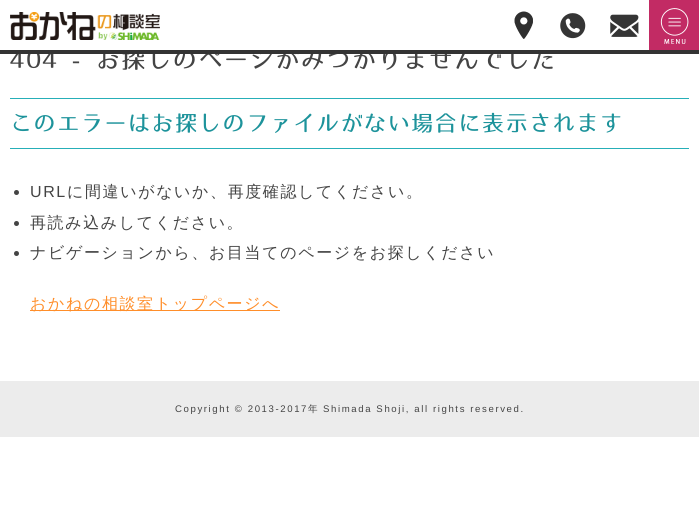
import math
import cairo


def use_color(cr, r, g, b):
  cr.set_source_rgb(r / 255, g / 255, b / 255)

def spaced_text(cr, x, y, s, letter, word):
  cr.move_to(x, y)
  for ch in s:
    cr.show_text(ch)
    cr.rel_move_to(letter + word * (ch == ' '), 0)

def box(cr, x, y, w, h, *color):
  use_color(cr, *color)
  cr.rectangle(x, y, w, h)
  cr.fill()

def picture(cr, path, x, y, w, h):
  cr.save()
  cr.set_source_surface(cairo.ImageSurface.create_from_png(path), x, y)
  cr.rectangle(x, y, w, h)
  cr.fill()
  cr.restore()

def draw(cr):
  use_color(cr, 255, 255, 255)
  cr.paint()
  picture(cr, "img_01.png", 10, 12, 150, 28)
  picture(cr, "img_02.png", 514, 11, 19, 28)
  picture(cr, "img_03.png", 560, 13, 26, 26)
  picture(cr, "img_04.png", 610, 14, 29, 23)
  picture(cr, "img_05.png", 649, 0, 50, 50)
  box(cr, 10, 98, 679, 1, 38, 175, 184)
  box(cr, 10, 148, 679, 1, 38, 175, 184)
  use_color(cr, 68, 68, 68)
  cr.arc(16.5, 192.5, 2.5, 0, 2 * math.pi)
  cr.fill()
  cr.arc(16.5, 223.5, 2.5, 0, 2 * math.pi)
  cr.fill()
  cr.arc(16.5, 253.5, 2.5, 0, 2 * math.pi)
  cr.fill()
  box(cr, 30, 310, 250, 1, 255, 142, 42)
  box(cr, 0, 381, 699, 56, 236, 236, 236)
  cr.select_font_face("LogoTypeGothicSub")
  cr.set_font_size(24)
  use_color(cr, 68, 68, 68)
  spaced_text(cr, 10, 68, "404", 1.6, 0)
  cr.select_font_face("Liberation Serif")
  spaced_text(cr, 72, 68, "-", 1.6, 0)
  cr.select_font_face("LogoTypeGothicSub")
  spaced_text(cr, 96, 68, "お探しのページがみつかりませんでした", 1.6, 0)
  box(cr, 0, 50, 699, 4, 51, 51, 51)
  box(cr, 102, 48, 440, 2, 255, 255, 255)
  cr.set_font_size(22)
  use_color(cr, 29, 147, 155)
  spaced_text(cr, 10, 131, "このエラーはお探しのファイルがない場合に表示されます", 1.6, 0)
  cr.select_font_face("Liberation Sans")
  cr.set_font_size(16)
  use_color(cr, 68, 68, 68)
  spaced_text(cr, 30, 197, "URL", 1.6, 0)
  cr.select_font_face("WenQuanYi Zen Hei Medium")
  spaced_text(cr, 67, 197, "に間違いがないか、再度確認してください。", 1.6, 0)
  spaced_text(cr, 30, 228, "再読み込みしてください。", 1.6, 0)
  spaced_text(cr, 30, 258, "ナビゲーションから、お目当てのページをお探しください", 1.6, 0)
  use_color(cr, 255, 142, 42)
  spaced_text(cr, 30, 309, "おかねの相談室トップページへ", 1.6, 0)
  cr.select_font_face("Liberation Sans")
  cr.set_font_size(9.6)
  use_color(cr, 68, 68, 68)
  spaced_text(cr, 175, 412, "Copyright © 2013-2017", 1.6, 0)
  cr.select_font_face("WenQuanYi Zen Hei Medium")
  spaced_text(cr, 308, 412, "年", 1.6, 0)
  cr.select_font_face("Liberation Sans")
  spaced_text(cr, 323, 412, "Shimada Shoji, all rights reserved.", 1.6, 0)


surface = cairo.ImageSurface(cairo.FORMAT_RGB24, 699, 507)
cr = cairo.Context(surface)
options = cairo.FontOptions()
options.set_hint_metrics(cairo.HINT_METRICS_OFF)
options.set_hint_style(cairo.HINT_STYLE_NONE)
cr.set_font_options(options)
cr.set_miter_limit(4)
draw(cr)
surface.write_to_png("out.png")
